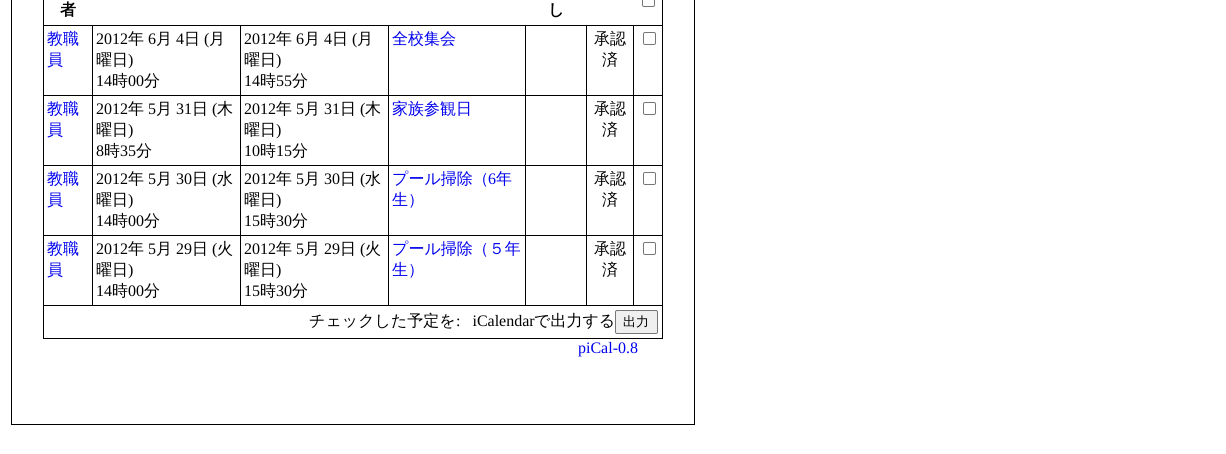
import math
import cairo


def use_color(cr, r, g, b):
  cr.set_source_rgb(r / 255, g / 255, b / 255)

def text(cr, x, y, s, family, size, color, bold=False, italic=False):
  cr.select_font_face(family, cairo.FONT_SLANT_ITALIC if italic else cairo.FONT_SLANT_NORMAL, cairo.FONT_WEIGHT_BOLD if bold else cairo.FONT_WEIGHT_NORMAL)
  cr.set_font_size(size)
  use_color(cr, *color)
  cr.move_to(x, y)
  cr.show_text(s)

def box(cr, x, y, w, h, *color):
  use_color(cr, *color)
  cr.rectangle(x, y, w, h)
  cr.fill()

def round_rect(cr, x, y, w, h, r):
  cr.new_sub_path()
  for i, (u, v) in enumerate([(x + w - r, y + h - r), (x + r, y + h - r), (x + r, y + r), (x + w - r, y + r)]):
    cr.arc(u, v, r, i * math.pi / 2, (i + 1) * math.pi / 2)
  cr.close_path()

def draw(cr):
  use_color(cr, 255, 255, 255)
  cr.paint()
  box(cr, 11, 0, 684, 425, 0, 0, 0)
  box(cr, 12, 0, 682, 424, 255, 255, 255)
  box(cr, 662, 0, 1, 339, 0, 0, 0)
  box(cr, 43, 338, 620, 1, 0, 0, 0)
  box(cr, 43, 0, 1, 339, 0, 0, 0)
  round_rect(cr, 642.5, -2.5, 12, 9, 1.5)
  use_color(cr, 118, 118, 118)
  cr.set_line_width(1)
  cr.stroke()
  box(cr, 633, 25, 30, 1, 0, 0, 0)
  box(cr, 633, 95, 30, 1, 0, 0, 0)
  box(cr, 633, 165, 30, 1, 0, 0, 0)
  box(cr, 633, 235, 30, 1, 0, 0, 0)
  box(cr, 633, 305, 30, 1, 0, 0, 0)
  box(cr, 633, 235, 1, 71, 0, 0, 0)
  box(cr, 586, 235, 48, 1, 0, 0, 0)
  box(cr, 633, 165, 1, 71, 0, 0, 0)
  box(cr, 586, 165, 48, 1, 0, 0, 0)
  box(cr, 633, 95, 1, 71, 0, 0, 0)
  box(cr, 586, 95, 48, 1, 0, 0, 0)
  box(cr, 633, 25, 1, 71, 0, 0, 0)
  box(cr, 586, 25, 48, 1, 0, 0, 0)
  box(cr, 586, 305, 48, 1, 0, 0, 0)
  box(cr, 586, 235, 1, 71, 0, 0, 0)
  box(cr, 525, 235, 62, 1, 0, 0, 0)
  box(cr, 586, 165, 1, 71, 0, 0, 0)
  box(cr, 525, 165, 62, 1, 0, 0, 0)
  box(cr, 586, 95, 1, 71, 0, 0, 0)
  box(cr, 525, 95, 62, 1, 0, 0, 0)
  box(cr, 586, 25, 1, 71, 0, 0, 0)
  box(cr, 525, 25, 62, 1, 0, 0, 0)
  box(cr, 525, 305, 62, 1, 0, 0, 0)
  box(cr, 525, 235, 1, 71, 0, 0, 0)
  box(cr, 388, 235, 138, 1, 0, 0, 0)
  box(cr, 525, 165, 1, 71, 0, 0, 0)
  box(cr, 388, 165, 138, 1, 0, 0, 0)
  box(cr, 525, 95, 1, 71, 0, 0, 0)
  box(cr, 388, 95, 138, 1, 0, 0, 0)
  box(cr, 525, 25, 1, 71, 0, 0, 0)
  box(cr, 388, 25, 138, 1, 0, 0, 0)
  box(cr, 388, 305, 138, 1, 0, 0, 0)
  box(cr, 388, 235, 1, 71, 0, 0, 0)
  box(cr, 240, 235, 149, 1, 0, 0, 0)
  box(cr, 388, 165, 1, 71, 0, 0, 0)
  box(cr, 240, 165, 149, 1, 0, 0, 0)
  box(cr, 388, 95, 1, 71, 0, 0, 0)
  box(cr, 240, 95, 149, 1, 0, 0, 0)
  box(cr, 388, 25, 1, 71, 0, 0, 0)
  box(cr, 240, 25, 149, 1, 0, 0, 0)
  box(cr, 240, 305, 149, 1, 0, 0, 0)
  box(cr, 240, 235, 1, 71, 0, 0, 0)
  box(cr, 92, 235, 149, 1, 0, 0, 0)
  box(cr, 240, 165, 1, 71, 0, 0, 0)
  box(cr, 92, 165, 149, 1, 0, 0, 0)
  box(cr, 240, 95, 1, 71, 0, 0, 0)
  box(cr, 92, 95, 149, 1, 0, 0, 0)
  box(cr, 240, 25, 1, 71, 0, 0, 0)
  box(cr, 92, 25, 149, 1, 0, 0, 0)
  box(cr, 92, 305, 149, 1, 0, 0, 0)
  box(cr, 92, 235, 1, 71, 0, 0, 0)
  box(cr, 43, 235, 50, 1, 0, 0, 0)
  box(cr, 92, 165, 1, 71, 0, 0, 0)
  box(cr, 43, 165, 50, 1, 0, 0, 0)
  box(cr, 92, 95, 1, 71, 0, 0, 0)
  box(cr, 43, 95, 50, 1, 0, 0, 0)
  box(cr, 92, 25, 1, 71, 0, 0, 0)
  box(cr, 43, 25, 50, 1, 0, 0, 0)
  round_rect(cr, 643.5, 32.5, 12, 12, 1.5)
  use_color(cr, 118, 118, 118)
  cr.stroke()
  round_rect(cr, 643.5, 102.5, 12, 12, 1.5)
  cr.stroke()
  round_rect(cr, 643.5, 172.5, 12, 12, 1.5)
  cr.stroke()
  box(cr, 43, 305, 50, 1, 0, 0, 0)
  round_rect(cr, 643.5, 242.5, 12, 12, 1.5)
  use_color(cr, 118, 118, 118)
  cr.stroke()
  use_color(cr, 239, 239, 239)
  round_rect(cr, 615.5, 310.5, 42, 23, 1.5)
  cr.fill_preserve()
  use_color(cr, 118, 118, 118)
  cr.stroke()
  text(cr, 60, 15, "者", "WenQuanYi Zen Hei", 16, (0, 0, 0), bold=True)
  text(cr, 548, 15, "し", "WenQuanYi Zen Hei", 16, (0, 0, 0), bold=True)
  text(cr, 47, 44, "教職", "WenQuanYi Zen Hei Medium", 16, (0, 0, 238))
  text(cr, 47, 65, "員", "WenQuanYi Zen Hei Medium", 16, (0, 0, 238))
  text(cr, 96, 44, "2012", "Liberation Serif", 16, (0, 0, 0))
  text(cr, 128, 44, "年", "WenQuanYi Zen Hei Medium", 16, (0, 0, 0))
  text(cr, 148, 44, "6", "Liberation Serif", 16, (0, 0, 0))
  text(cr, 156, 44, "月", "WenQuanYi Zen Hei Medium", 16, (0, 0, 0))
  text(cr, 176, 44, "4", "Liberation Serif", 16, (0, 0, 0))
  text(cr, 184, 44, "日", "WenQuanYi Zen Hei Medium", 16, (0, 0, 0))
  text(cr, 204, 44, "(", "Liberation Serif", 16, (0, 0, 0))
  text(cr, 209, 44, "月", "WenQuanYi Zen Hei Medium", 16, (0, 0, 0))
  text(cr, 96, 65, "曜日", "WenQuanYi Zen Hei Medium", 16, (0, 0, 0))
  text(cr, 128, 65, ")", "Liberation Serif", 16, (0, 0, 0))
  text(cr, 96, 86, "14", "Liberation Serif", 16, (0, 0, 0))
  text(cr, 112, 86, "時", "WenQuanYi Zen Hei Medium", 16, (0, 0, 0))
  text(cr, 128, 86, "00", "Liberation Serif", 16, (0, 0, 0))
  text(cr, 144, 86, "分", "WenQuanYi Zen Hei Medium", 16, (0, 0, 0))
  text(cr, 244, 44, "2012", "Liberation Serif", 16, (0, 0, 0))
  text(cr, 276, 44, "年", "WenQuanYi Zen Hei Medium", 16, (0, 0, 0))
  text(cr, 296, 44, "6", "Liberation Serif", 16, (0, 0, 0))
  text(cr, 304, 44, "月", "WenQuanYi Zen Hei Medium", 16, (0, 0, 0))
  text(cr, 324, 44, "4", "Liberation Serif", 16, (0, 0, 0))
  text(cr, 332, 44, "日", "WenQuanYi Zen Hei Medium", 16, (0, 0, 0))
  text(cr, 352, 44, "(", "Liberation Serif", 16, (0, 0, 0))
  text(cr, 357, 44, "月", "WenQuanYi Zen Hei Medium", 16, (0, 0, 0))
  text(cr, 244, 65, "曜日", "WenQuanYi Zen Hei Medium", 16, (0, 0, 0))
  text(cr, 276, 65, ")", "Liberation Serif", 16, (0, 0, 0))
  text(cr, 244, 86, "14", "Liberation Serif", 16, (0, 0, 0))
  text(cr, 260, 86, "時", "WenQuanYi Zen Hei Medium", 16, (0, 0, 0))
  text(cr, 276, 86, "55", "Liberation Serif", 16, (0, 0, 0))
  text(cr, 292, 86, "分", "WenQuanYi Zen Hei Medium", 16, (0, 0, 0))
  text(cr, 392, 44, "全校集会", "WenQuanYi Zen Hei Medium", 16, (0, 0, 238))
  text(cr, 594, 44, "承認", "WenQuanYi Zen Hei Medium", 16, (0, 0, 0))
  text(cr, 602, 65, "済", "WenQuanYi Zen Hei Medium", 16, (0, 0, 0))
  text(cr, 47, 114, "教職", "WenQuanYi Zen Hei Medium", 16, (0, 0, 238))
  text(cr, 47, 135, "員", "WenQuanYi Zen Hei Medium", 16, (0, 0, 238))
  text(cr, 96, 114, "2012", "Liberation Serif", 16, (0, 0, 0))
  text(cr, 128, 114, "年", "WenQuanYi Zen Hei Medium", 16, (0, 0, 0))
  text(cr, 148, 114, "5", "Liberation Serif", 16, (0, 0, 0))
  text(cr, 156, 114, "月", "WenQuanYi Zen Hei Medium", 16, (0, 0, 0))
  text(cr, 176, 114, "31", "Liberation Serif", 16, (0, 0, 0))
  text(cr, 192, 114, "日", "WenQuanYi Zen Hei Medium", 16, (0, 0, 0))
  text(cr, 212, 114, "(", "Liberation Serif", 16, (0, 0, 0))
  text(cr, 217, 114, "木", "WenQuanYi Zen Hei Medium", 16, (0, 0, 0))
  text(cr, 96, 135, "曜日", "WenQuanYi Zen Hei Medium", 16, (0, 0, 0))
  text(cr, 128, 135, ")", "Liberation Serif", 16, (0, 0, 0))
  text(cr, 96, 156, "8", "Liberation Serif", 16, (0, 0, 0))
  text(cr, 104, 156, "時", "WenQuanYi Zen Hei Medium", 16, (0, 0, 0))
  text(cr, 120, 156, "35", "Liberation Serif", 16, (0, 0, 0))
  text(cr, 136, 156, "分", "WenQuanYi Zen Hei Medium", 16, (0, 0, 0))
  text(cr, 244, 114, "2012", "Liberation Serif", 16, (0, 0, 0))
  text(cr, 276, 114, "年", "WenQuanYi Zen Hei Medium", 16, (0, 0, 0))
  text(cr, 296, 114, "5", "Liberation Serif", 16, (0, 0, 0))
  text(cr, 304, 114, "月", "WenQuanYi Zen Hei Medium", 16, (0, 0, 0))
  text(cr, 324, 114, "31", "Liberation Serif", 16, (0, 0, 0))
  text(cr, 340, 114, "日", "WenQuanYi Zen Hei Medium", 16, (0, 0, 0))
  text(cr, 360, 114, "(", "Liberation Serif", 16, (0, 0, 0))
  text(cr, 365, 114, "木", "WenQuanYi Zen Hei Medium", 16, (0, 0, 0))
  text(cr, 244, 135, "曜日", "WenQuanYi Zen Hei Medium", 16, (0, 0, 0))
  text(cr, 276, 135, ")", "Liberation Serif", 16, (0, 0, 0))
  text(cr, 244, 156, "10", "Liberation Serif", 16, (0, 0, 0))
  text(cr, 260, 156, "時", "WenQuanYi Zen Hei Medium", 16, (0, 0, 0))
  text(cr, 276, 156, "15", "Liberation Serif", 16, (0, 0, 0))
  text(cr, 292, 156, "分", "WenQuanYi Zen Hei Medium", 16, (0, 0, 0))
  text(cr, 392, 114, "家族参観日", "WenQuanYi Zen Hei Medium", 16, (0, 0, 238))
  text(cr, 594, 114, "承認", "WenQuanYi Zen Hei Medium", 16, (0, 0, 0))
  text(cr, 602, 135, "済", "WenQuanYi Zen Hei Medium", 16, (0, 0, 0))
  text(cr, 47, 184, "教職", "WenQuanYi Zen Hei Medium", 16, (0, 0, 238))
  text(cr, 47, 205, "員", "WenQuanYi Zen Hei Medium", 16, (0, 0, 238))
  text(cr, 96, 184, "2012", "Liberation Serif", 16, (0, 0, 0))
  text(cr, 128, 184, "年", "WenQuanYi Zen Hei Medium", 16, (0, 0, 0))
  text(cr, 148, 184, "5", "Liberation Serif", 16, (0, 0, 0))
  text(cr, 156, 184, "月", "WenQuanYi Zen Hei Medium", 16, (0, 0, 0))
  text(cr, 176, 184, "30", "Liberation Serif", 16, (0, 0, 0))
  text(cr, 192, 184, "日", "WenQuanYi Zen Hei Medium", 16, (0, 0, 0))
  text(cr, 212, 184, "(", "Liberation Serif", 16, (0, 0, 0))
  text(cr, 217, 184, "水", "WenQuanYi Zen Hei Medium", 16, (0, 0, 0))
  text(cr, 96, 205, "曜日", "WenQuanYi Zen Hei Medium", 16, (0, 0, 0))
  text(cr, 128, 205, ")", "Liberation Serif", 16, (0, 0, 0))
  text(cr, 96, 226, "14", "Liberation Serif", 16, (0, 0, 0))
  text(cr, 112, 226, "時", "WenQuanYi Zen Hei Medium", 16, (0, 0, 0))
  text(cr, 128, 226, "00", "Liberation Serif", 16, (0, 0, 0))
  text(cr, 144, 226, "分", "WenQuanYi Zen Hei Medium", 16, (0, 0, 0))
  text(cr, 244, 184, "2012", "Liberation Serif", 16, (0, 0, 0))
  text(cr, 276, 184, "年", "WenQuanYi Zen Hei Medium", 16, (0, 0, 0))
  text(cr, 296, 184, "5", "Liberation Serif", 16, (0, 0, 0))
  text(cr, 304, 184, "月", "WenQuanYi Zen Hei Medium", 16, (0, 0, 0))
  text(cr, 324, 184, "30", "Liberation Serif", 16, (0, 0, 0))
  text(cr, 340, 184, "日", "WenQuanYi Zen Hei Medium", 16, (0, 0, 0))
  text(cr, 360, 184, "(", "Liberation Serif", 16, (0, 0, 0))
  text(cr, 365, 184, "水", "WenQuanYi Zen Hei Medium", 16, (0, 0, 0))
  text(cr, 244, 205, "曜日", "WenQuanYi Zen Hei Medium", 16, (0, 0, 0))
  text(cr, 276, 205, ")", "Liberation Serif", 16, (0, 0, 0))
  text(cr, 244, 226, "15", "Liberation Serif", 16, (0, 0, 0))
  text(cr, 260, 226, "時", "WenQuanYi Zen Hei Medium", 16, (0, 0, 0))
  text(cr, 276, 226, "30", "Liberation Serif", 16, (0, 0, 0))
  text(cr, 292, 226, "分", "WenQuanYi Zen Hei Medium", 16, (0, 0, 0))
  text(cr, 392, 184, "プール掃除（", "WenQuanYi Zen Hei Medium", 16, (0, 0, 238))
  text(cr, 488, 184, "6", "Liberation Serif", 16, (0, 0, 238))
  text(cr, 496, 184, "年", "WenQuanYi Zen Hei Medium", 16, (0, 0, 238))
  text(cr, 392, 205, "生）", "WenQuanYi Zen Hei Medium", 16, (0, 0, 238))
  text(cr, 594, 184, "承認", "WenQuanYi Zen Hei Medium", 16, (0, 0, 0))
  text(cr, 602, 205, "済", "WenQuanYi Zen Hei Medium", 16, (0, 0, 0))
  text(cr, 47, 254, "教職", "WenQuanYi Zen Hei Medium", 16, (0, 0, 238))
  text(cr, 47, 275, "員", "WenQuanYi Zen Hei Medium", 16, (0, 0, 238))
  text(cr, 96, 254, "2012", "Liberation Serif", 16, (0, 0, 0))
  text(cr, 128, 254, "年", "WenQuanYi Zen Hei Medium", 16, (0, 0, 0))
  text(cr, 148, 254, "5", "Liberation Serif", 16, (0, 0, 0))
  text(cr, 156, 254, "月", "WenQuanYi Zen Hei Medium", 16, (0, 0, 0))
  text(cr, 176, 254, "29", "Liberation Serif", 16, (0, 0, 0))
  text(cr, 192, 254, "日", "WenQuanYi Zen Hei Medium", 16, (0, 0, 0))
  text(cr, 212, 254, "(", "Liberation Serif", 16, (0, 0, 0))
  text(cr, 217, 254, "火", "WenQuanYi Zen Hei Medium", 16, (0, 0, 0))
  text(cr, 96, 275, "曜日", "WenQuanYi Zen Hei Medium", 16, (0, 0, 0))
  text(cr, 128, 275, ")", "Liberation Serif", 16, (0, 0, 0))
  text(cr, 96, 296, "14", "Liberation Serif", 16, (0, 0, 0))
  text(cr, 112, 296, "時", "WenQuanYi Zen Hei Medium", 16, (0, 0, 0))
  text(cr, 128, 296, "00", "Liberation Serif", 16, (0, 0, 0))
  text(cr, 144, 296, "分", "WenQuanYi Zen Hei Medium", 16, (0, 0, 0))
  text(cr, 244, 254, "2012", "Liberation Serif", 16, (0, 0, 0))
  text(cr, 276, 254, "年", "WenQuanYi Zen Hei Medium", 16, (0, 0, 0))
  text(cr, 296, 254, "5", "Liberation Serif", 16, (0, 0, 0))
  text(cr, 304, 254, "月", "WenQuanYi Zen Hei Medium", 16, (0, 0, 0))
  text(cr, 324, 254, "29", "Liberation Serif", 16, (0, 0, 0))
  text(cr, 340, 254, "日", "WenQuanYi Zen Hei Medium", 16, (0, 0, 0))
  text(cr, 360, 254, "(", "Liberation Serif", 16, (0, 0, 0))
  text(cr, 365, 254, "火", "WenQuanYi Zen Hei Medium", 16, (0, 0, 0))
  text(cr, 244, 275, "曜日", "WenQuanYi Zen Hei Medium", 16, (0, 0, 0))
  text(cr, 276, 275, ")", "Liberation Serif", 16, (0, 0, 0))
  text(cr, 244, 296, "15", "Liberation Serif", 16, (0, 0, 0))
  text(cr, 260, 296, "時", "WenQuanYi Zen Hei Medium", 16, (0, 0, 0))
  text(cr, 276, 296, "30", "Liberation Serif", 16, (0, 0, 0))
  text(cr, 292, 296, "分", "WenQuanYi Zen Hei Medium", 16, (0, 0, 0))
  text(cr, 392, 254, "プール掃除（５年", "WenQuanYi Zen Hei Medium", 16, (0, 0, 238))
  text(cr, 392, 275, "生）", "WenQuanYi Zen Hei Medium", 16, (0, 0, 238))
  text(cr, 594, 254, "承認", "WenQuanYi Zen Hei Medium", 16, (0, 0, 0))
  text(cr, 602, 275, "済", "WenQuanYi Zen Hei Medium", 16, (0, 0, 0))
  text(cr, 309, 326, "チェックした予定を", "WenQuanYi Zen Hei Medium", 16, (0, 0, 0))
  text(cr, 456, 326, ":   iCalendar", "Liberation Serif", 16, (0, 0, 0))
  text(cr, 534, 326, "で出力する", "WenQuanYi Zen Hei Medium", 16, (0, 0, 0))
  text(cr, 623, 326, "出力", "WenQuanYi Zen Hei Medium", 13, (0, 0, 0))
  text(cr, 578, 353, "piCal-0.8", "Liberation Serif", 16, (0, 0, 238))


surface = cairo.ImageSurface(cairo.FORMAT_RGB24, 1226, 454)
cr = cairo.Context(surface)
options = cairo.FontOptions()
options.set_hint_metrics(cairo.HINT_METRICS_OFF)
options.set_hint_style(cairo.HINT_STYLE_NONE)
cr.set_font_options(options)
cr.set_miter_limit(4)
draw(cr)
surface.write_to_png("out.png")
